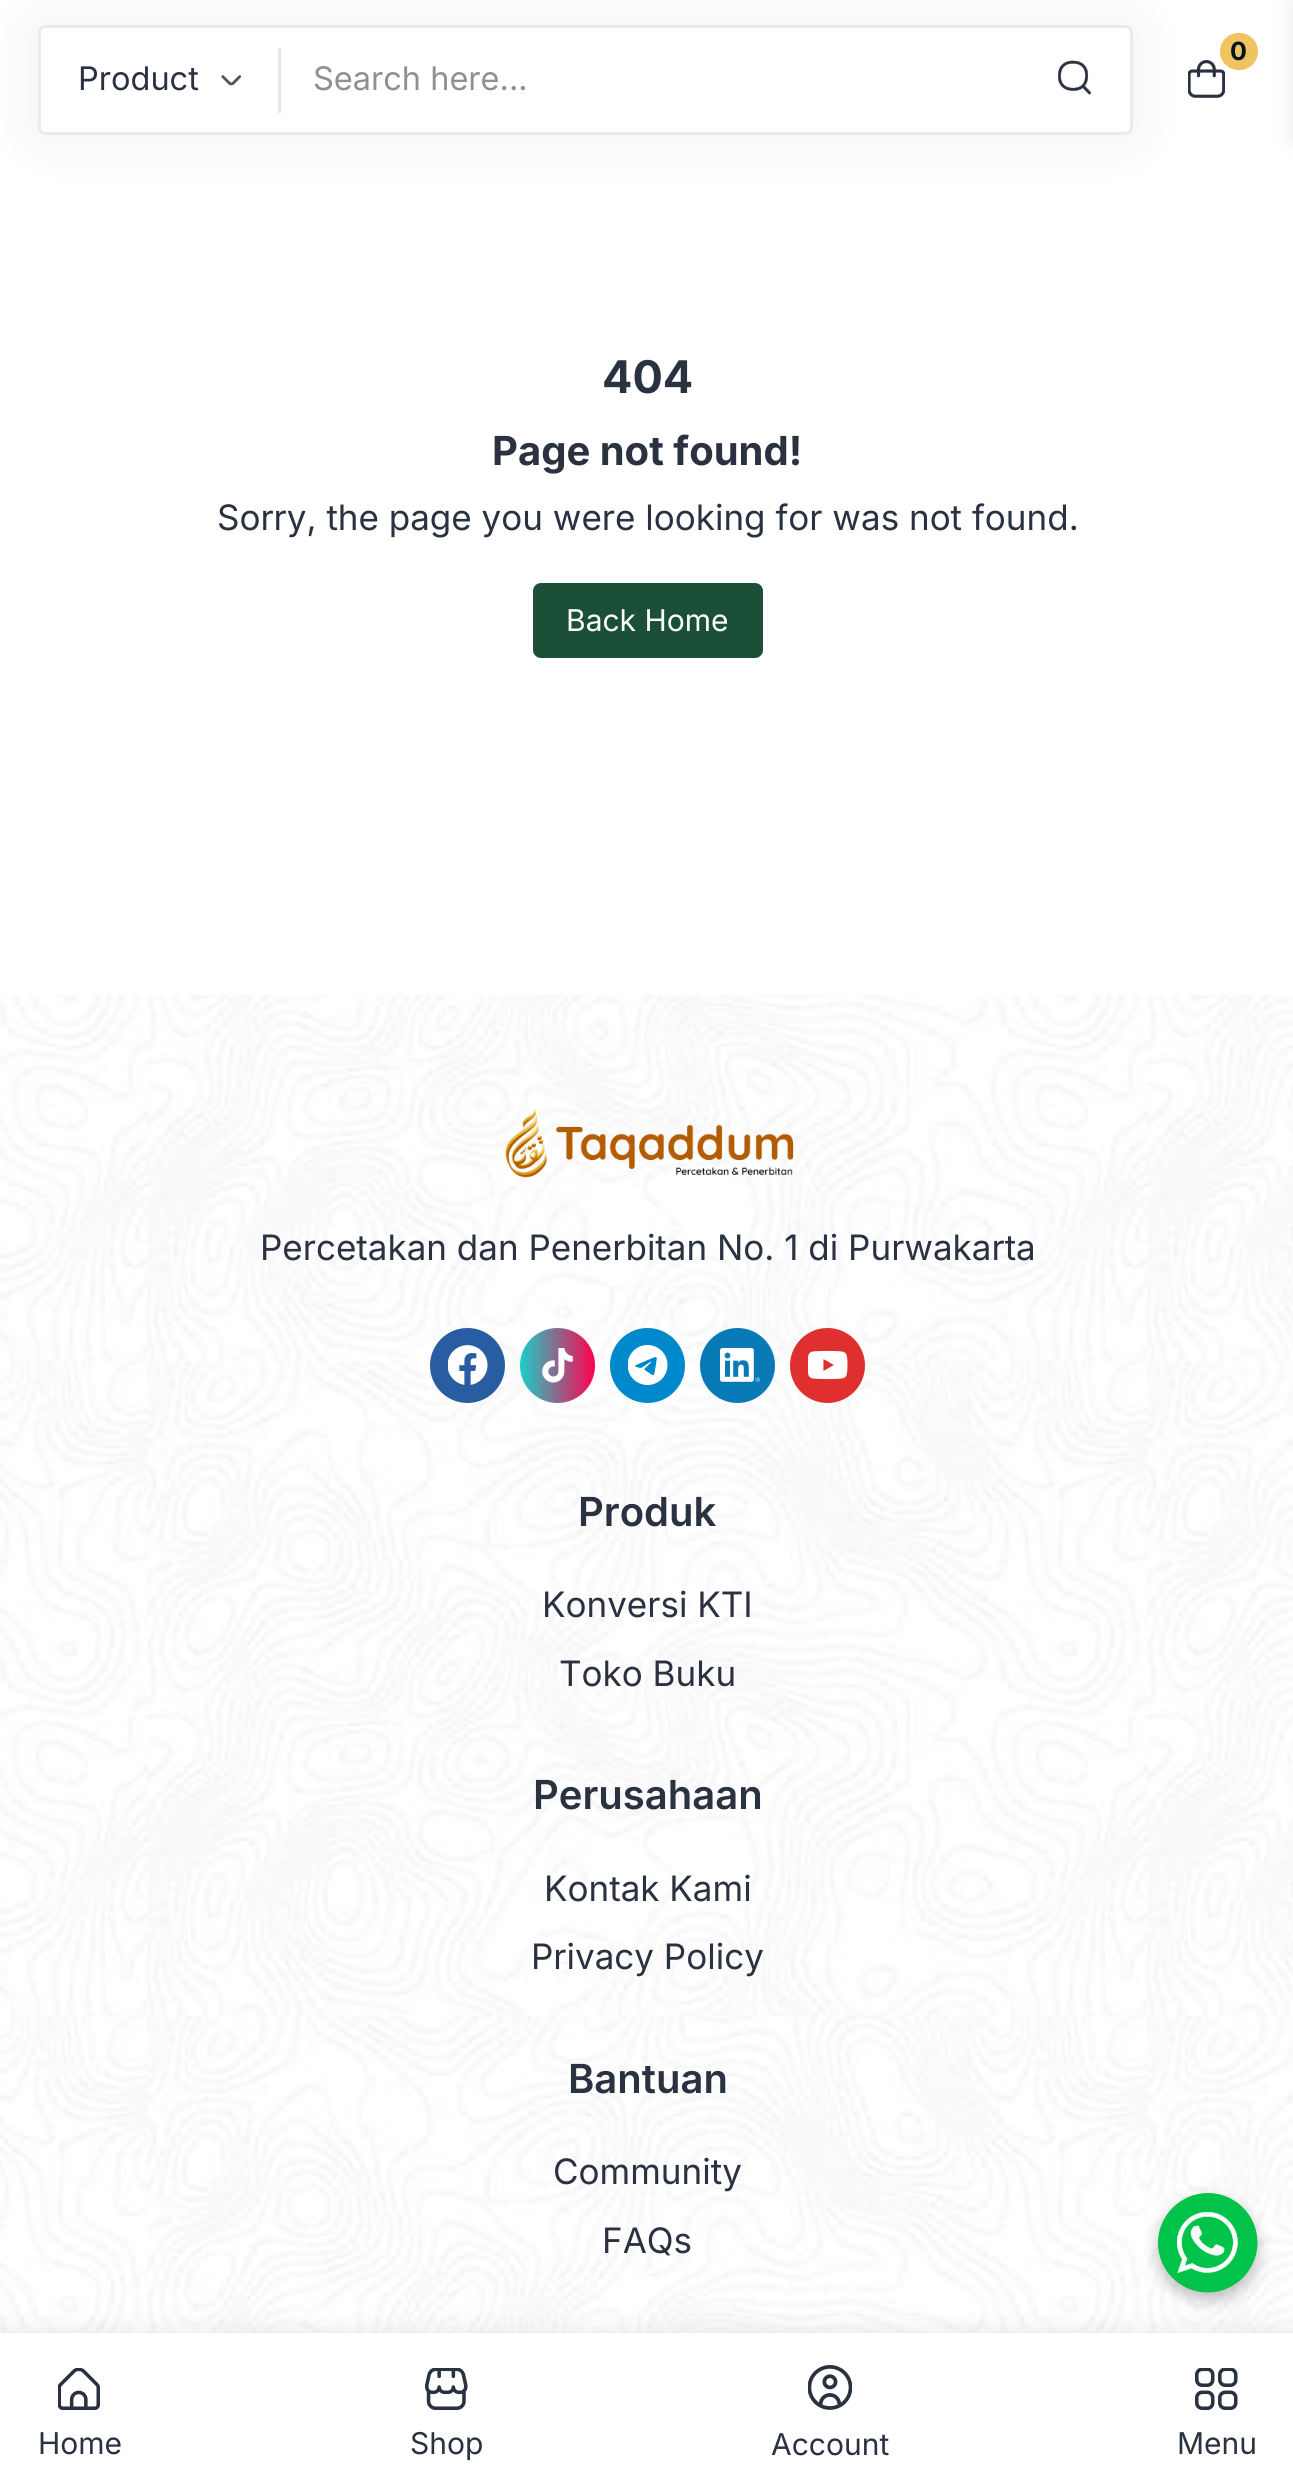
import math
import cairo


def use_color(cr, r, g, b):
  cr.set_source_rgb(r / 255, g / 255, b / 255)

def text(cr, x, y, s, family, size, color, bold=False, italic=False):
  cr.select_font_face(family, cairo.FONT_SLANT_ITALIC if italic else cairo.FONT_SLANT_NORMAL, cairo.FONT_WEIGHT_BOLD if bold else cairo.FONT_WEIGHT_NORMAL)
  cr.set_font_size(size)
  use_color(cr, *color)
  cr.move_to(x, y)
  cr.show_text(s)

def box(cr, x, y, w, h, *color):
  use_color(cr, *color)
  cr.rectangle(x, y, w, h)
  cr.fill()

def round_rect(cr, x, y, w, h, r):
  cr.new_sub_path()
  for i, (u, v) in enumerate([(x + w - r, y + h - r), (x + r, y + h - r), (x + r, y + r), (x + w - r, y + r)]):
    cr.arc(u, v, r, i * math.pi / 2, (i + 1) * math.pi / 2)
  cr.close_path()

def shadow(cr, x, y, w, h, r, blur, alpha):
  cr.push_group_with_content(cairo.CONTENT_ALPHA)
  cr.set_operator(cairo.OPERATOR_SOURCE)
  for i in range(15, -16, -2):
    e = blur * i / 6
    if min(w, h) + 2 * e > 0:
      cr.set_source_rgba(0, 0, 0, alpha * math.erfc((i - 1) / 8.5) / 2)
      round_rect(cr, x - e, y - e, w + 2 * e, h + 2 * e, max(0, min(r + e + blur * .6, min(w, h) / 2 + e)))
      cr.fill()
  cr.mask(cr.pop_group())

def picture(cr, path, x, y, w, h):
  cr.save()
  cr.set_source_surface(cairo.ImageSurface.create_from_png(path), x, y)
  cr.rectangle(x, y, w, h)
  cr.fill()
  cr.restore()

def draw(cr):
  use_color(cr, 255, 255, 255)
  cr.paint()
  picture(cr, "img_01.png", 1188, 60, 37, 38)
  use_color(cr, 239, 195, 96)
  round_rect(cr, 1220, 33, 38, 37, 18.5)
  cr.fill()
  use_color(cr, 0, 0, 0)
  shadow(cr, 30, 18, 1110, 125, 15, 25, 0.05)
  use_color(cr, 255, 255, 255)
  round_rect(cr, 39.5, 26.5, 1092, 107, 6.5)
  cr.fill_preserve()
  use_color(cr, 234, 234, 239)
  cr.set_line_width(3)
  cr.stroke()
  picture(cr, "img_02.png", 221, 75, 21, 11)
  box(cr, 278, 48, 3, 65, 230, 230, 230)
  picture(cr, "img_03.png", 1058, 60, 33, 35)
  use_color(cr, 129, 129, 129)
  shadow(cr, 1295, 0, 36, 138, 0, 12.5, 0.2)
  use_color(cr, 27, 79, 55)
  round_rect(cr, 533, 583, 230, 75, 8)
  cr.fill()
  picture(cr, "img_04.png", 0, 995, 1293, 1338)
  picture(cr, "img_05.png", 505, 1108, 289, 70)
  use_color(cr, 40, 93, 161)
  cr.arc(467.5, 1365.5, 37.5, 0, 2 * math.pi)
  cr.fill()
  picture(cr, "img_06.png", 448, 1345, 40, 40)
  gradient = cairo.LinearGradient(520, 1365, 595, 1365)
  gradient.add_color_stop_rgba(0, 0.102, 0.812, 0.788, 1)
  gradient.add_color_stop_rgba(1, 1, 0, 0.31, 1)
  cr.set_source(gradient)
  cr.arc(557.5, 1365.5, 37.5, 0, 2 * math.pi)
  cr.fill()
  picture(cr, "img_07.png", 542, 1348, 31, 35)
  use_color(cr, 0, 136, 204)
  cr.arc(647.5, 1365.5, 37.5, 0, 2 * math.pi)
  cr.fill()
  picture(cr, "img_08.png", 628, 1345, 40, 40)
  use_color(cr, 8, 122, 182)
  cr.arc(737.5, 1365.5, 37.5, 0, 2 * math.pi)
  cr.fill()
  picture(cr, "img_09.png", 720, 1348, 40, 34)
  use_color(cr, 224, 47, 47)
  cr.arc(827.5, 1365.5, 37.5, 0, 2 * math.pi)
  cr.fill()
  picture(cr, "img_10.png", 808, 1350, 40, 30)
  use_color(cr, 129, 129, 129)
  shadow(cr, 0, 2333, 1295, 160, 0, 12.5, 0.2)
  box(cr, 0, 2333, 1293, 159, 255, 255, 255)
  picture(cr, "img_11.png", 58, 2368, 42, 42)
  picture(cr, "img_12.png", 425, 2368, 43, 42)
  picture(cr, "img_13.png", 808, 2365, 44, 45)
  picture(cr, "img_14.png", 1195, 2368, 43, 42)
  use_color(cr, 0, 0, 0)
  shadow(cr, 1158, 2200, 100, 100, 50, 7.5, 0.25)
  picture(cr, "img_15.png", 1158, 2193, 100, 100)
  text(cr, 1230, 60, "0", "Inter", 25, (4, 18, 31), bold=True)
  text(cr, 78, 90, "Product", "Inter", 32.5, (42, 49, 65))
  text(cr, 313, 90, "Search here...", "Inter", 32.5, (144, 144, 144))
  text(cr, 602, 393, "404", "Inter", 45, (42, 49, 65), bold=True)
  text(cr, 492, 465, "Page not found!", "Inter", 40, (42, 49, 65), bold=True)
  text(cr, 217, 530, "Sorry, the page you were looking for was not found.", "Inter", 35, (42, 49, 65))
  text(cr, 566, 631, "Back Home", "Inter", 30, (255, 255, 255))
  text(cr, 260, 1260, "Percetakan dan Penerbitan No. 1 di Purwakarta", "Inter", 35, (42, 49, 65))
  text(cr, 578, 1526, "Produk", "Inter SemiBold", 40, (42, 49, 65))
  text(cr, 542, 1617, "Konversi KTI", "Inter", 35, (42, 49, 65))
  text(cr, 559, 1686, "Toko Buku", "Inter", 35, (42, 49, 65))
  text(cr, 533, 1809, "Perusahaan", "Inter SemiBold", 40, (42, 49, 65))
  text(cr, 544, 1901, "Kontak Kami", "Inter", 35, (42, 49, 65))
  text(cr, 531, 1969, "Privacy Policy", "Inter", 35, (42, 49, 65))
  text(cr, 568, 2093, "Bantuan", "Inter SemiBold", 40, (42, 49, 65))
  text(cr, 553, 2184, "Community", "Inter", 35, (42, 49, 65))
  text(cr, 602, 2253, "FAQs", "Inter", 35, (42, 49, 65))
  text(cr, 38, 2454, "Home", "Inter", 30, (42, 49, 65))
  text(cr, 410, 2454, "Shop", "Inter", 30, (42, 49, 65))
  text(cr, 771, 2455, "Account", "Inter", 30, (42, 49, 65))
  text(cr, 1177, 2454, "Menu", "Inter", 30, (42, 49, 65))


surface = cairo.ImageSurface(cairo.FORMAT_RGB24, 1293, 2492)
cr = cairo.Context(surface)
options = cairo.FontOptions()
options.set_hint_metrics(cairo.HINT_METRICS_OFF)
options.set_hint_style(cairo.HINT_STYLE_NONE)
cr.set_font_options(options)
cr.set_miter_limit(4)
draw(cr)
surface.write_to_png("out.png")
